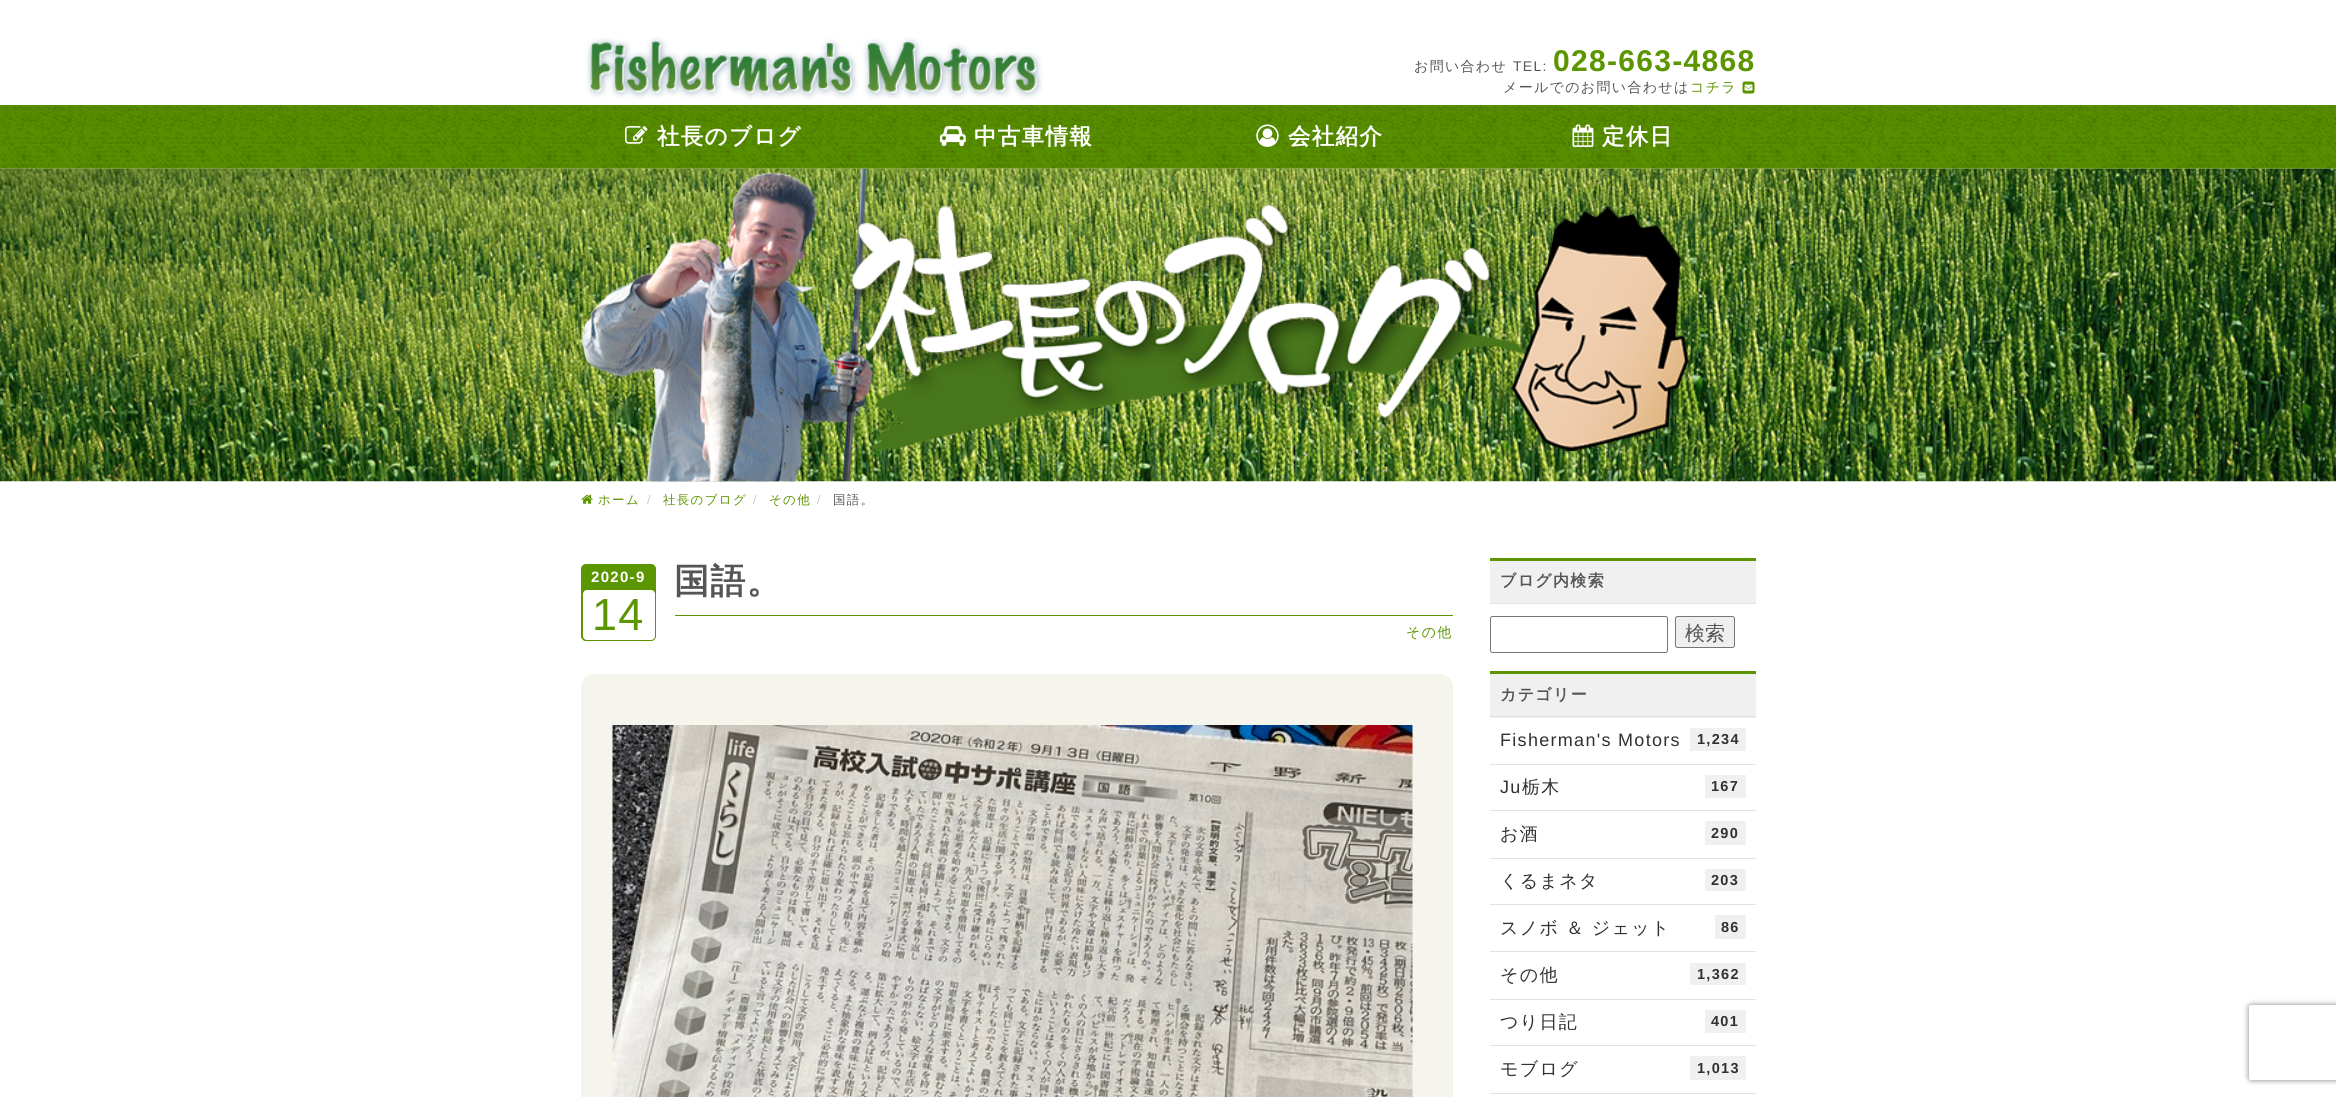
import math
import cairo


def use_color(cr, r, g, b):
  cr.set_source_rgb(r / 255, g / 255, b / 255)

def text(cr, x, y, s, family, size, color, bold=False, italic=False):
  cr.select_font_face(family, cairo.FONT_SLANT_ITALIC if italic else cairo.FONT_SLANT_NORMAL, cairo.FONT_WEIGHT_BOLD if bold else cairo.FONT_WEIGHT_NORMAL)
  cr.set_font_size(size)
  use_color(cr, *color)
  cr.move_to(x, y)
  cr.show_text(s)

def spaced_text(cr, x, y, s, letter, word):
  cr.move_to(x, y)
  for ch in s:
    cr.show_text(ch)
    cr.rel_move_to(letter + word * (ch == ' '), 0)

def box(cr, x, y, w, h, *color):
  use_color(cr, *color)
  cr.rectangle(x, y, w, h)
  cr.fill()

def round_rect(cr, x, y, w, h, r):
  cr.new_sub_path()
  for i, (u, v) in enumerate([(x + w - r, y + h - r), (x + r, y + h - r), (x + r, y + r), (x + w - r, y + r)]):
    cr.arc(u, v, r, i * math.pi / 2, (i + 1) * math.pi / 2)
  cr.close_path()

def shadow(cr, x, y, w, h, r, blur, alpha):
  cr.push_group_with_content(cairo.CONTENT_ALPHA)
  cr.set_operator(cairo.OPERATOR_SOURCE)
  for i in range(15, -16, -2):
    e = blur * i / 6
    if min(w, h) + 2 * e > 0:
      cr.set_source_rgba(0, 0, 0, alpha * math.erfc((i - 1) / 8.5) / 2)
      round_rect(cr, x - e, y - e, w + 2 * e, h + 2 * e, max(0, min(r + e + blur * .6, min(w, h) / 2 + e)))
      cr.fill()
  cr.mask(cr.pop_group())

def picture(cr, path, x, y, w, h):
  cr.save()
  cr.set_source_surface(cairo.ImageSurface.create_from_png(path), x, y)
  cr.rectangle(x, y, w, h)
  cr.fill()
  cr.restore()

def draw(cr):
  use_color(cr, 255, 255, 255)
  cr.paint()
  picture(cr, "img_01.png", 586, 37, 457, 62)
  picture(cr, "img_02.png", 1742, 81, 13, 13)
  picture(cr, "img_03.png", 0, 105, 2336, 64)
  picture(cr, "img_04.png", 625, 126, 23, 18)
  picture(cr, "img_05.png", 940, 126, 26, 21)
  picture(cr, "img_06.png", 1256, 124, 23, 23)
  picture(cr, "img_07.png", 1572, 124, 22, 23)
  picture(cr, "img_08.png", 0, 168, 2336, 314)
  picture(cr, "img_09.png", 581, 168, 1108, 314)
  picture(cr, "img_10.png", 581, 494, 12, 10)
  use_color(cr, 91, 149, 0)
  round_rect(cr, 581.5, 564.5, 74, 76, 4.5)
  cr.fill_preserve()
  cr.set_line_width(1)
  cr.stroke()
  use_color(cr, 255, 255, 255)
  round_rect(cr, 583, 590, 72, 50, 4)
  cr.fill()
  box(cr, 675, 615, 778, 1, 91, 149, 0)
  use_color(cr, 245, 245, 237)
  round_rect(cr, 581, 674, 872, 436, 13)
  cr.fill()
  picture(cr, "img_11.png", 612, 725, 801, 372)
  box(cr, 1490, 561, 266, 42, 240, 240, 240)
  box(cr, 1490, 558, 266, 3, 91, 149, 0)
  box(cr, 1490, 603, 266, 1, 226, 226, 226)
  round_rect(cr, 1490.5, 616.5, 177, 36, 2)
  use_color(cr, 118, 118, 118)
  cr.stroke()
  use_color(cr, 239, 239, 239)
  round_rect(cr, 1675.5, 616.5, 59, 31, 2)
  cr.fill_preserve()
  use_color(cr, 118, 118, 118)
  cr.stroke()
  box(cr, 1490, 674, 266, 44, 240, 240, 240)
  box(cr, 1490, 671, 266, 3, 91, 149, 0)
  box(cr, 1490, 716, 266, 1, 226, 226, 226)
  box(cr, 1490, 764, 266, 1, 226, 226, 226)
  box(cr, 1690, 728, 56, 23, 240, 240, 240)
  box(cr, 1490, 810, 266, 1, 226, 226, 226)
  box(cr, 1705, 775, 41, 23, 240, 240, 240)
  box(cr, 1490, 858, 266, 1, 226, 226, 226)
  box(cr, 1705, 821, 41, 24, 240, 240, 240)
  box(cr, 1490, 904, 266, 1, 226, 226, 226)
  box(cr, 1705, 869, 41, 22, 240, 240, 240)
  box(cr, 1490, 951, 266, 1, 226, 226, 226)
  box(cr, 1715, 915, 31, 24, 240, 240, 240)
  box(cr, 1490, 999, 266, 1, 226, 226, 226)
  box(cr, 1690, 963, 56, 22, 240, 240, 240)
  box(cr, 1490, 1045, 266, 1, 226, 226, 226)
  box(cr, 1705, 1010, 41, 23, 240, 240, 240)
  box(cr, 1490, 1093, 266, 1, 226, 226, 226)
  box(cr, 1690, 1056, 56, 24, 240, 240, 240)
  cr.save()
  cr.set_fill_rule(cairo.FILL_RULE_EVEN_ODD)
  cr.new_path()
  cr.move_to(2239, 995)
  cr.line_to(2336, 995)
  cr.line_to(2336, 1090)
  cr.line_to(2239, 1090)
  cr.close_path()
  cr.move_to(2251.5, 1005)
  cr.line_to(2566.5, 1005)
  cr.curve_to(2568, 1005, 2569, 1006, 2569, 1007.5)
  cr.line_to(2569, 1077.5)
  cr.curve_to(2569, 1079, 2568, 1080, 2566.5, 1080)
  cr.line_to(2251.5, 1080)
  cr.curve_to(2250, 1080, 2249, 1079, 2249, 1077.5)
  cr.line_to(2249, 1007.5)
  cr.curve_to(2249, 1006, 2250, 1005, 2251.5, 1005)
  cr.close_path()
  cr.clip()
  use_color(cr, 128, 128, 128)
  shadow(cr, 2249, 1005, 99, 75, 2.5, 3, 1)
  cr.restore()
  cr.select_font_face("WenQuanYi Zen Hei Medium")
  cr.set_font_size(14)
  use_color(cr, 85, 85, 85)
  spaced_text(cr, 1414, 71, "お問い合わせ", 1.3, 0)
  cr.select_font_face("Liberation Sans")
  spaced_text(cr, 1513, 71, "TEL:", 1.3, 0)
  cr.select_font_face("Liberation Sans", cairo.FONT_SLANT_NORMAL, cairo.FONT_WEIGHT_BOLD)
  cr.set_font_size(30)
  use_color(cr, 91, 149, 0)
  spaced_text(cr, 1553, 71, "028-663-4868", 1.3, 0)
  cr.select_font_face("WenQuanYi Zen Hei Medium")
  cr.set_font_size(14)
  use_color(cr, 85, 85, 85)
  spaced_text(cr, 1503, 92, "メールでのお問い合わせは", 1.3, 0)
  use_color(cr, 91, 149, 0)
  spaced_text(cr, 1690, 92, "コチラ", 1.3, 0)
  cr.select_font_face("WenQuanYi Zen Hei", cairo.FONT_SLANT_NORMAL, cairo.FONT_WEIGHT_BOLD)
  cr.set_font_size(22.5)
  use_color(cr, 255, 255, 255)
  spaced_text(cr, 657, 144, "社長のブログ", 1.3, 0)
  spaced_text(cr, 974, 144, "中古車情報", 1.3, 0)
  spaced_text(cr, 1288, 144, "会社紹介", 1.3, 0)
  spaced_text(cr, 1602, 144, "定休日", 1.3, 0)
  cr.select_font_face("WenQuanYi Zen Hei Medium")
  cr.set_font_size(12.5)
  use_color(cr, 91, 149, 0)
  spaced_text(cr, 598, 504, "ホーム", 1.3, 0)
  cr.select_font_face("Liberation Sans")
  use_color(cr, 204, 204, 204)
  spaced_text(cr, 647, 504, "/", 1.3, 0)
  cr.select_font_face("WenQuanYi Zen Hei Medium")
  use_color(cr, 91, 149, 0)
  spaced_text(cr, 663, 504, "社長のブログ", 1.3, 0)
  cr.select_font_face("Liberation Sans")
  use_color(cr, 204, 204, 204)
  spaced_text(cr, 753, 504, "/", 1.3, 0)
  cr.select_font_face("WenQuanYi Zen Hei Medium")
  use_color(cr, 91, 149, 0)
  spaced_text(cr, 769, 504, "その他", 1.3, 0)
  cr.select_font_face("Liberation Sans")
  use_color(cr, 204, 204, 204)
  spaced_text(cr, 817, 504, "/", 1.3, 0)
  cr.select_font_face("WenQuanYi Zen Hei Medium")
  use_color(cr, 85, 85, 85)
  spaced_text(cr, 833, 504, "国語。", 1.3, 0)
  cr.select_font_face("Liberation Sans", cairo.FONT_SLANT_NORMAL, cairo.FONT_WEIGHT_BOLD)
  cr.set_font_size(15)
  use_color(cr, 255, 255, 255)
  spaced_text(cr, 591, 582, "2020-9", 1.3, 0)
  cr.select_font_face("Liberation Sans")
  cr.set_font_size(45)
  use_color(cr, 91, 149, 0)
  spaced_text(cr, 592, 630, "14", 1.3, 0)
  cr.select_font_face("WenQuanYi Zen Hei", cairo.FONT_SLANT_NORMAL, cairo.FONT_WEIGHT_BOLD)
  cr.set_font_size(35)
  use_color(cr, 85, 85, 85)
  spaced_text(cr, 674, 593, "国語。", 1.3, 0)
  cr.select_font_face("WenQuanYi Zen Hei Medium")
  cr.set_font_size(14)
  use_color(cr, 91, 149, 0)
  spaced_text(cr, 1406, 637, "その他", 1.3, 0)
  cr.select_font_face("WenQuanYi Zen Hei", cairo.FONT_SLANT_NORMAL, cairo.FONT_WEIGHT_BOLD)
  cr.set_font_size(16)
  use_color(cr, 85, 85, 85)
  spaced_text(cr, 1500, 586, "ブログ内検索", 1.3, 0)
  text(cr, 1685, 640, "検索", "WenQuanYi Zen Hei Medium", 20, (85, 85, 85))
  cr.select_font_face("WenQuanYi Zen Hei", cairo.FONT_SLANT_NORMAL, cairo.FONT_WEIGHT_BOLD)
  cr.set_font_size(16)
  spaced_text(cr, 1500, 700, "カテゴリー", 1.3, 0)
  cr.select_font_face("Liberation Sans")
  cr.set_font_size(18)
  use_color(cr, 49, 49, 49)
  spaced_text(cr, 1500, 746, "Fisherman's Motors", 1.3, 0)
  cr.select_font_face("Liberation Sans", cairo.FONT_SLANT_NORMAL, cairo.FONT_WEIGHT_BOLD)
  cr.set_font_size(14.5)
  spaced_text(cr, 1697, 744, "1,234", 1.3, 0)
  cr.select_font_face("Liberation Sans")
  cr.set_font_size(18)
  spaced_text(cr, 1500, 793, "Ju", 1.3, 0)
  cr.select_font_face("WenQuanYi Zen Hei Medium")
  spaced_text(cr, 1522, 793, "栃木", 1.3, 0)
  cr.select_font_face("Liberation Sans", cairo.FONT_SLANT_NORMAL, cairo.FONT_WEIGHT_BOLD)
  cr.set_font_size(14.5)
  spaced_text(cr, 1711, 791, "167", 1.3, 0)
  cr.select_font_face("WenQuanYi Zen Hei Medium")
  cr.set_font_size(18)
  spaced_text(cr, 1500, 840, "お酒", 1.3, 0)
  cr.select_font_face("Liberation Sans", cairo.FONT_SLANT_NORMAL, cairo.FONT_WEIGHT_BOLD)
  cr.set_font_size(14.5)
  spaced_text(cr, 1711, 838, "290", 1.3, 0)
  cr.select_font_face("WenQuanYi Zen Hei Medium")
  cr.set_font_size(18)
  spaced_text(cr, 1500, 887, "くるまネタ", 1.3, 0)
  cr.select_font_face("Liberation Sans", cairo.FONT_SLANT_NORMAL, cairo.FONT_WEIGHT_BOLD)
  cr.set_font_size(14.5)
  spaced_text(cr, 1711, 885, "203", 1.3, 0)
  cr.select_font_face("WenQuanYi Zen Hei Medium")
  cr.set_font_size(18)
  spaced_text(cr, 1500, 934, "スノボ ＆ ジェット", 1.3, 0)
  cr.select_font_face("Liberation Sans", cairo.FONT_SLANT_NORMAL, cairo.FONT_WEIGHT_BOLD)
  cr.set_font_size(14.5)
  spaced_text(cr, 1721, 932, "86", 1.3, 0)
  cr.select_font_face("WenQuanYi Zen Hei Medium")
  cr.set_font_size(18)
  spaced_text(cr, 1500, 981, "その他", 1.3, 0)
  cr.select_font_face("Liberation Sans", cairo.FONT_SLANT_NORMAL, cairo.FONT_WEIGHT_BOLD)
  cr.set_font_size(14.5)
  spaced_text(cr, 1697, 979, "1,362", 1.3, 0)
  cr.select_font_face("WenQuanYi Zen Hei Medium")
  cr.set_font_size(18)
  spaced_text(cr, 1500, 1028, "つり日記", 1.3, 0)
  cr.select_font_face("Liberation Sans", cairo.FONT_SLANT_NORMAL, cairo.FONT_WEIGHT_BOLD)
  cr.set_font_size(14.5)
  spaced_text(cr, 1711, 1026, "401", 1.3, 0)
  cr.select_font_face("WenQuanYi Zen Hei Medium")
  cr.set_font_size(18)
  spaced_text(cr, 1500, 1075, "モブログ", 1.3, 0)
  cr.select_font_face("Liberation Sans", cairo.FONT_SLANT_NORMAL, cairo.FONT_WEIGHT_BOLD)
  cr.set_font_size(14.5)
  spaced_text(cr, 1697, 1073, "1,013", 1.3, 0)


surface = cairo.ImageSurface(cairo.FORMAT_RGB24, 2336, 1097)
cr = cairo.Context(surface)
options = cairo.FontOptions()
options.set_hint_metrics(cairo.HINT_METRICS_OFF)
options.set_hint_style(cairo.HINT_STYLE_NONE)
cr.set_font_options(options)
cr.set_miter_limit(4)
draw(cr)
surface.write_to_png("out.png")
